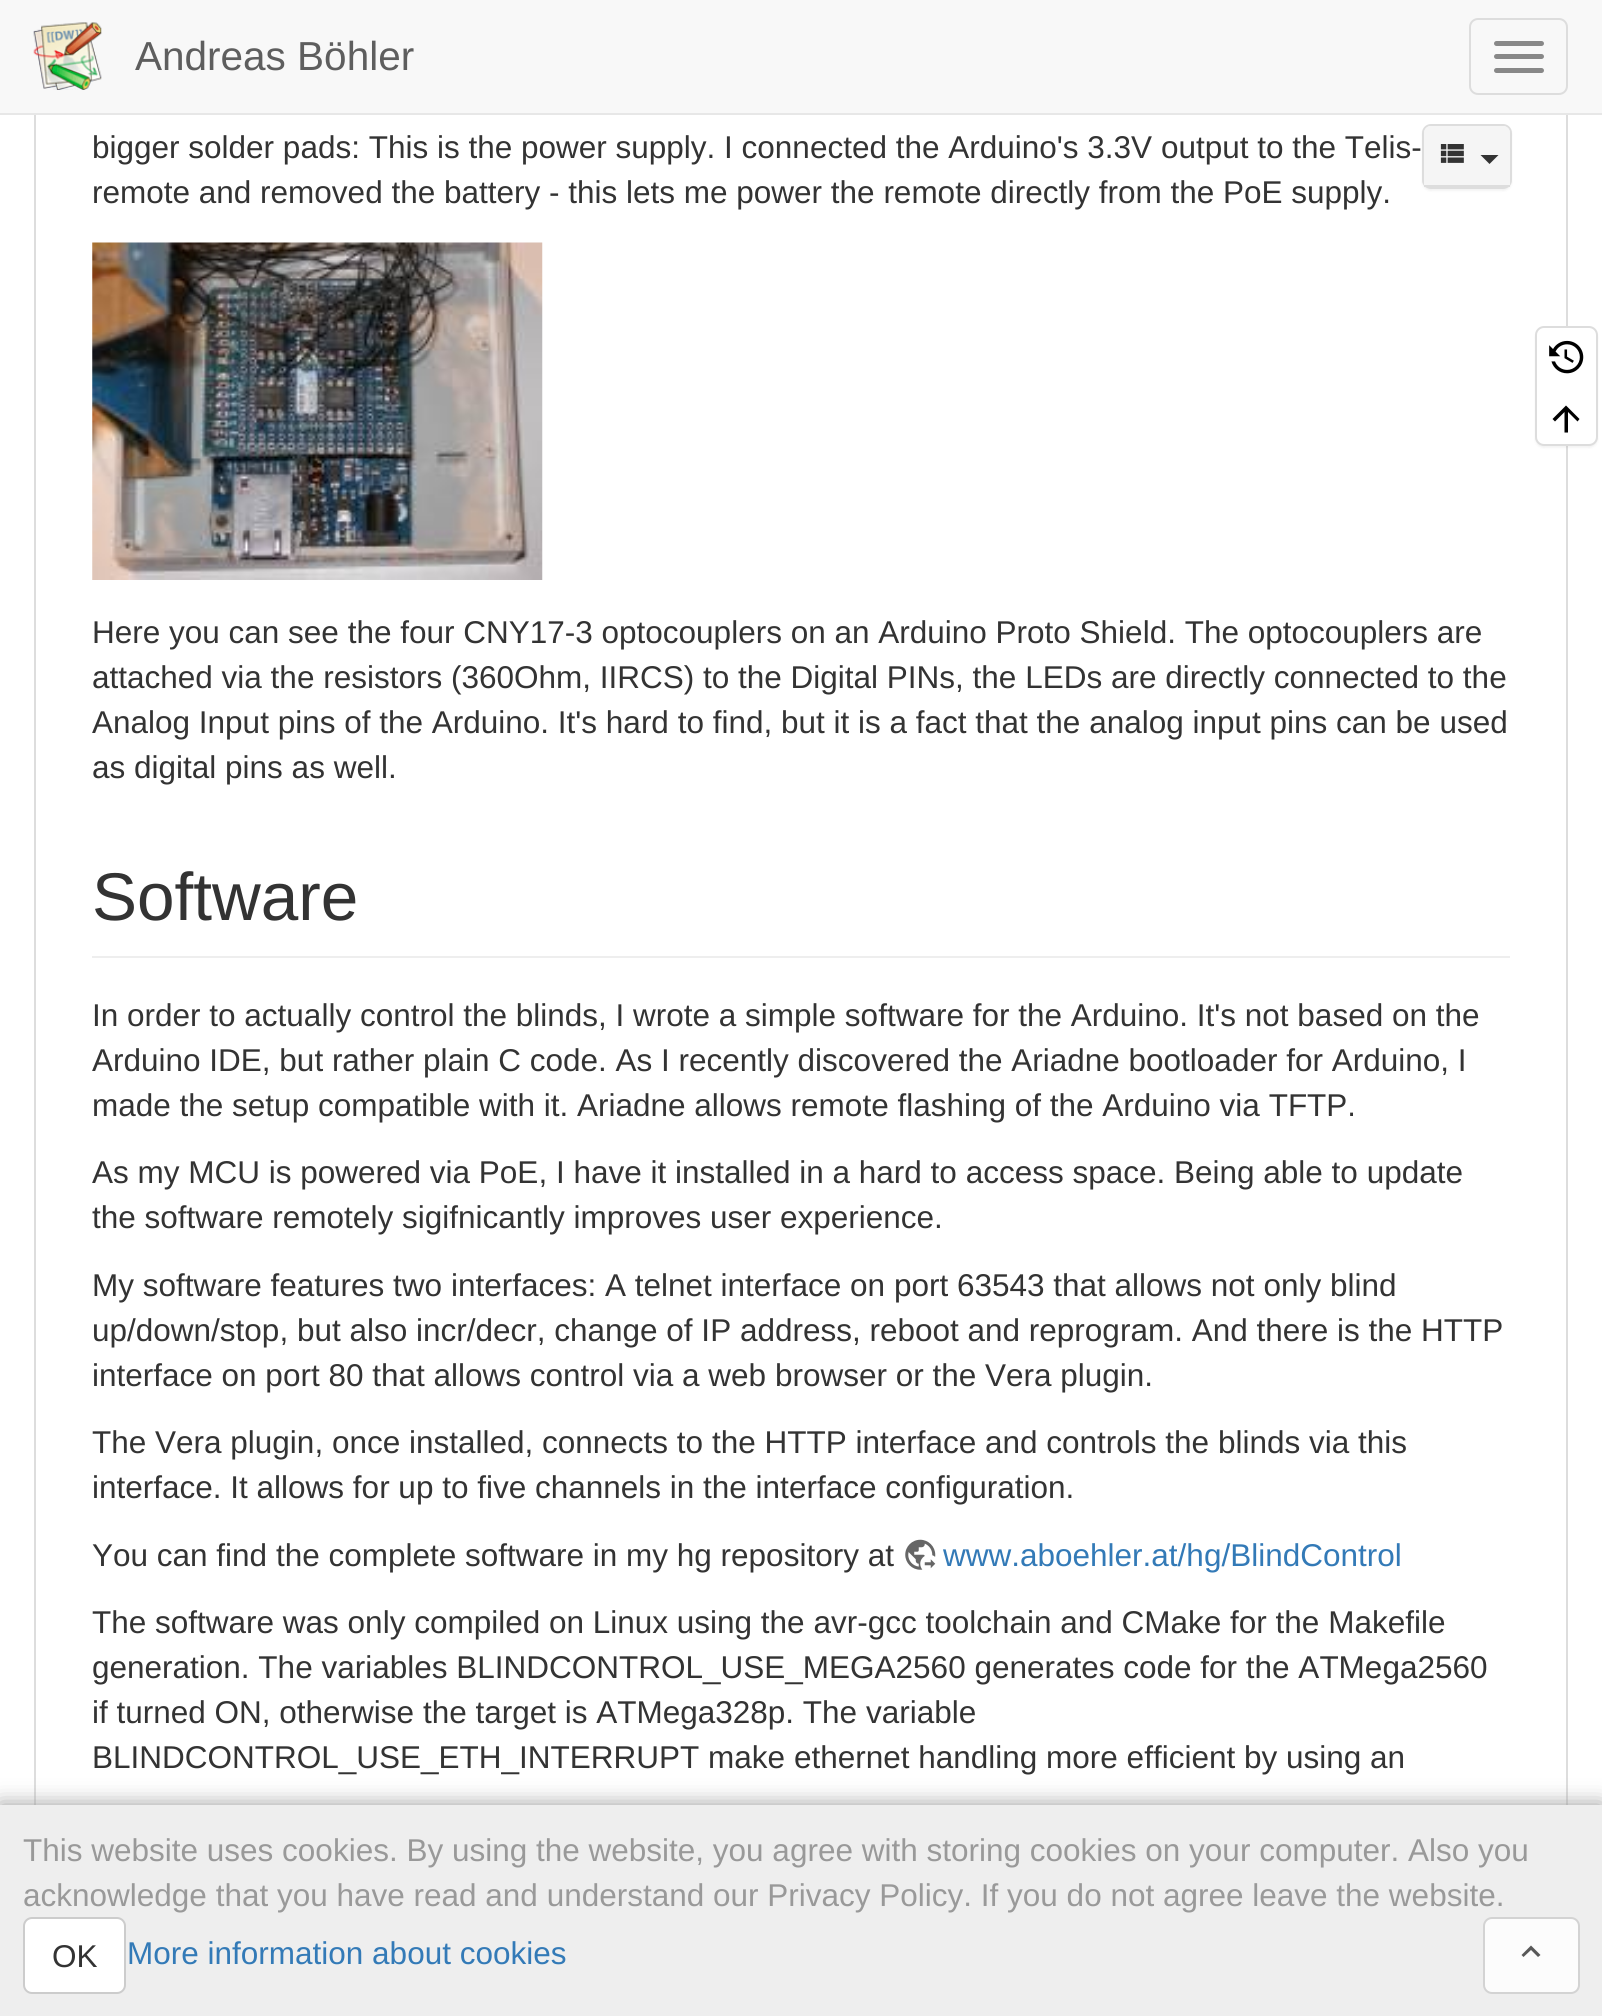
import math
import cairo


def use_color(cr, r, g, b):
  cr.set_source_rgb(r / 255, g / 255, b / 255)

def text(cr, x, y, s, family, size, color, bold=False, italic=False):
  cr.select_font_face(family, cairo.FONT_SLANT_ITALIC if italic else cairo.FONT_SLANT_NORMAL, cairo.FONT_WEIGHT_BOLD if bold else cairo.FONT_WEIGHT_NORMAL)
  cr.set_font_size(size)
  use_color(cr, *color)
  cr.move_to(x, y)
  cr.show_text(s)

def box(cr, x, y, w, h, *color):
  use_color(cr, *color)
  cr.rectangle(x, y, w, h)
  cr.fill()

def round_rect(cr, x, y, w, h, r):
  cr.new_sub_path()
  for i, (u, v) in enumerate([(x + w - r, y + h - r), (x + r, y + h - r), (x + r, y + r), (x + w - r, y + r)]):
    cr.arc(u, v, r, i * math.pi / 2, (i + 1) * math.pi / 2)
  cr.close_path()

def shadow(cr, x, y, w, h, r, blur, alpha):
  cr.push_group_with_content(cairo.CONTENT_ALPHA)
  cr.set_operator(cairo.OPERATOR_SOURCE)
  for i in range(15, -16, -2):
    e = blur * i / 6
    if min(w, h) + 2 * e > 0:
      cr.set_source_rgba(0, 0, 0, alpha * math.erfc((i - 1) / 8.5) / 2)
      round_rect(cr, x - e, y - e, w + 2 * e, h + 2 * e, max(0, min(r + e + blur * .6, min(w, h) / 2 + e)))
      cr.fill()
  cr.mask(cr.pop_group())

def picture(cr, path, x, y, w, h):
  cr.save()
  cr.set_source_surface(cairo.ImageSurface.create_from_png(path), x, y)
  cr.rectangle(x, y, w, h)
  cr.fill()
  cr.restore()

def draw(cr):
  use_color(cr, 255, 255, 255)
  cr.paint()
  cr.rectangle(35, -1, 1532, 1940)
  use_color(cr, 221, 221, 221)
  cr.stroke()
  box(cr, 0, 0, 1602, 113, 248, 248, 248)
  box(cr, 0, 113, 1602, 2, 231, 231, 231)
  picture(cr, "img_01.png", 33, 22, 69, 68)
  round_rect(cr, 1470, 19, 97, 75, 8)
  use_color(cr, 221, 221, 221)
  cr.stroke()
  use_color(cr, 136, 136, 136)
  round_rect(cr, 1494, 41, 50, 5, 2.5)
  cr.fill()
  round_rect(cr, 1494, 54, 50, 5, 2.5)
  cr.fill()
  round_rect(cr, 1494, 68, 50, 5, 2.5)
  cr.fill()
  use_color(cr, 0, 0, 0)
  shadow(cr, 1422, 126, 90, 65, 9, 1, 0.05)
  round_rect(cr, 1423, 125, 88, 63, 8)
  use_color(cr, 221, 221, 221)
  cr.stroke()
  use_color(cr, 245, 245, 245)
  cr.new_path()
  cr.move_to(1431, 126)
  cr.line_to(1503, 126)
  cr.curve_to(1507, 126, 1510, 129, 1510, 133)
  cr.line_to(1510, 187)
  cr.line_to(1424, 187)
  cr.line_to(1424, 133)
  cr.curve_to(1424, 129, 1427, 126, 1431, 126)
  cr.close_path()
  cr.fill()
  box(cr, 1424, 185, 86, 2, 221, 221, 221)
  picture(cr, "img_02.png", 1440, 144, 24, 19)
  use_color(cr, 51, 51, 51)
  cr.new_path()
  cr.move_to(1480.5, 155)
  cr.line_to(1498.5, 155)
  cr.line_to(1489.5, 164)
  cr.close_path()
  cr.fill()
  picture(cr, "img_03.png", 92, 242, 451, 338)
  box(cr, 92, 956, 1418, 2, 238, 238, 238)
  picture(cr, "img_04.png", 905, 1539, 31, 31)
  use_color(cr, 153, 153, 153)
  shadow(cr, 0, 1805, 1602, 211, 0, 11, 1)
  box(cr, 0, 1805, 1602, 211, 238, 238, 238)
  use_color(cr, 255, 255, 255)
  round_rect(cr, 24, 1918, 101, 75, 8)
  cr.fill_preserve()
  use_color(cr, 204, 204, 204)
  cr.stroke()
  use_color(cr, 0, 0, 0)
  shadow(cr, 1535, 329, 63, 119, 9, 1, 0.05)
  use_color(cr, 255, 255, 255)
  round_rect(cr, 1536, 327, 61, 118, 8)
  cr.fill_preserve()
  use_color(cr, 221, 221, 221)
  cr.stroke()
  picture(cr, "img_05.png", 1549, 340, 35, 34)
  use_color(cr, 0, 0, 0)
  cr.new_path()
  cr.move_to(1568, 432.5)
  cr.line_to(1564.5, 432.5)
  cr.line_to(1564.5, 412)
  cr.line_to(1555, 421.5)
  cr.line_to(1552.5, 419)
  cr.line_to(1566, 405.5)
  cr.line_to(1579.5, 419)
  cr.line_to(1577.5, 421.5)
  cr.line_to(1568, 412)
  cr.close_path()
  cr.fill()
  use_color(cr, 252, 252, 252)
  round_rect(cr, 1484, 1918, 95, 75, 8)
  cr.fill_preserve()
  use_color(cr, 211, 211, 211)
  cr.stroke()
  use_color(cr, 88, 88, 88)
  cr.new_path()
  cr.move_to(1523.5, 1957)
  cr.line_to(1531, 1950)
  cr.line_to(1538, 1957)
  cr.line_to(1540.5, 1955)
  cr.line_to(1531, 1945.5)
  cr.line_to(1521.5, 1955)
  cr.close_path()
  cr.fill()
  text(cr, 135, 70, "Andreas Böhler", "Liberation Sans", 40.5, (94, 94, 94))
  text(cr, 92, 158, "bigger solder pads: This is the power supply. I connected the Arduino's 3.3V output to the Telis-", "Liberation Sans", 31.5, (51, 51, 51))
  text(cr, 92, 203, "remote and removed the battery - this lets me power the remote directly from the PoE supply.", "Liberation Sans", 31.5, (51, 51, 51))
  text(cr, 92, 643, "Here you can see the four CNY17-3 optocouplers on an Arduino Proto Shield. The optocouplers are", "Liberation Sans", 31.5, (51, 51, 51))
  text(cr, 92, 688, "attached via the resistors (360Ohm, IIRCS) to the Digital PINs, the LEDs are directly connected to the", "Liberation Sans", 31.5, (51, 51, 51))
  text(cr, 92, 733, "Analog Input pins of the Arduino. It's hard to find, but it is a fact that the analog input pins can be used", "Liberation Sans", 31.5, (51, 51, 51))
  text(cr, 92, 778, "as digital pins as well.", "Liberation Sans", 31.5, (51, 51, 51))
  text(cr, 92, 920, "Software", "Liberation Sans", 67.5, (51, 51, 51))
  text(cr, 92, 1026, "In order to actually control the blinds, I wrote a simple software for the Arduino. It's not based on the", "Liberation Sans", 31.5, (51, 51, 51))
  text(cr, 92, 1071, "Arduino IDE, but rather plain C code. As I recently discovered the Ariadne bootloader for Arduino, I", "Liberation Sans", 31.5, (51, 51, 51))
  text(cr, 92, 1116, "made the setup compatible with it. Ariadne allows remote flashing of the Arduino via TFTP.", "Liberation Sans", 31.5, (51, 51, 51))
  text(cr, 92, 1183, "As my MCU is powered via PoE, I have it installed in a hard to access space. Being able to update", "Liberation Sans", 31.5, (51, 51, 51))
  text(cr, 92, 1228, "the software remotely sigifnicantly improves user experience.", "Liberation Sans", 31.5, (51, 51, 51))
  text(cr, 92, 1296, "My software features two interfaces: A telnet interface on port 63543 that allows not only blind", "Liberation Sans", 31.5, (51, 51, 51))
  text(cr, 92, 1341, "up/down/stop, but also incr/decr, change of IP address, reboot and reprogram. And there is the HTTP", "Liberation Sans", 31.5, (51, 51, 51))
  text(cr, 92, 1386, "interface on port 80 that allows control via a web browser or the Vera plugin.", "Liberation Sans", 31.5, (51, 51, 51))
  text(cr, 92, 1453, "The Vera plugin, once installed, connects to the HTTP interface and controls the blinds via this", "Liberation Sans", 31.5, (51, 51, 51))
  text(cr, 92, 1498, "interface. It allows for up to five channels in the interface configuration.", "Liberation Sans", 31.5, (51, 51, 51))
  text(cr, 92, 1566, "You can find the complete software in my hg repository at", "Liberation Sans", 31.5, (51, 51, 51))
  text(cr, 943, 1566, "www.aboehler.at/hg/BlindControl", "Liberation Sans", 31.5, (51, 122, 183))
  text(cr, 92, 1633, "The software was only compiled on Linux using the avr-gcc toolchain and CMake for the Makefile", "Liberation Sans", 31.5, (51, 51, 51))
  text(cr, 92, 1678, "generation. The variables BLINDCONTROL_USE_MEGA2560 generates code for the ATMega2560", "Liberation Sans", 31.5, (51, 51, 51))
  text(cr, 92, 1723, "if turned ON, otherwise the target is ATMega328p. The variable", "Liberation Sans", 31.5, (51, 51, 51))
  text(cr, 92, 1768, "BLINDCONTROL_USE_ETH_INTERRUPT make ethernet handling more efficient by using an", "Liberation Sans", 31.5, (51, 51, 51))
  text(cr, 23, 1861, "This website uses cookies. By using the website, you agree with storing cookies on your computer. Also you", "Liberation Sans", 31.5, (153, 153, 153))
  text(cr, 23, 1906, "acknowledge that you have read and understand our Privacy Policy. If you do not agree leave the website.", "Liberation Sans", 31.5, (153, 153, 153))
  text(cr, 52, 1967, "OK", "Liberation Sans", 31.5, (51, 51, 51))
  text(cr, 127, 1964, "More information about cookies", "Liberation Sans", 31.5, (51, 122, 183))


surface = cairo.ImageSurface(cairo.FORMAT_RGB24, 1602, 2016)
cr = cairo.Context(surface)
options = cairo.FontOptions()
options.set_hint_metrics(cairo.HINT_METRICS_OFF)
options.set_hint_style(cairo.HINT_STYLE_NONE)
cr.set_font_options(options)
cr.set_miter_limit(4)
draw(cr)
surface.write_to_png("out.png")
